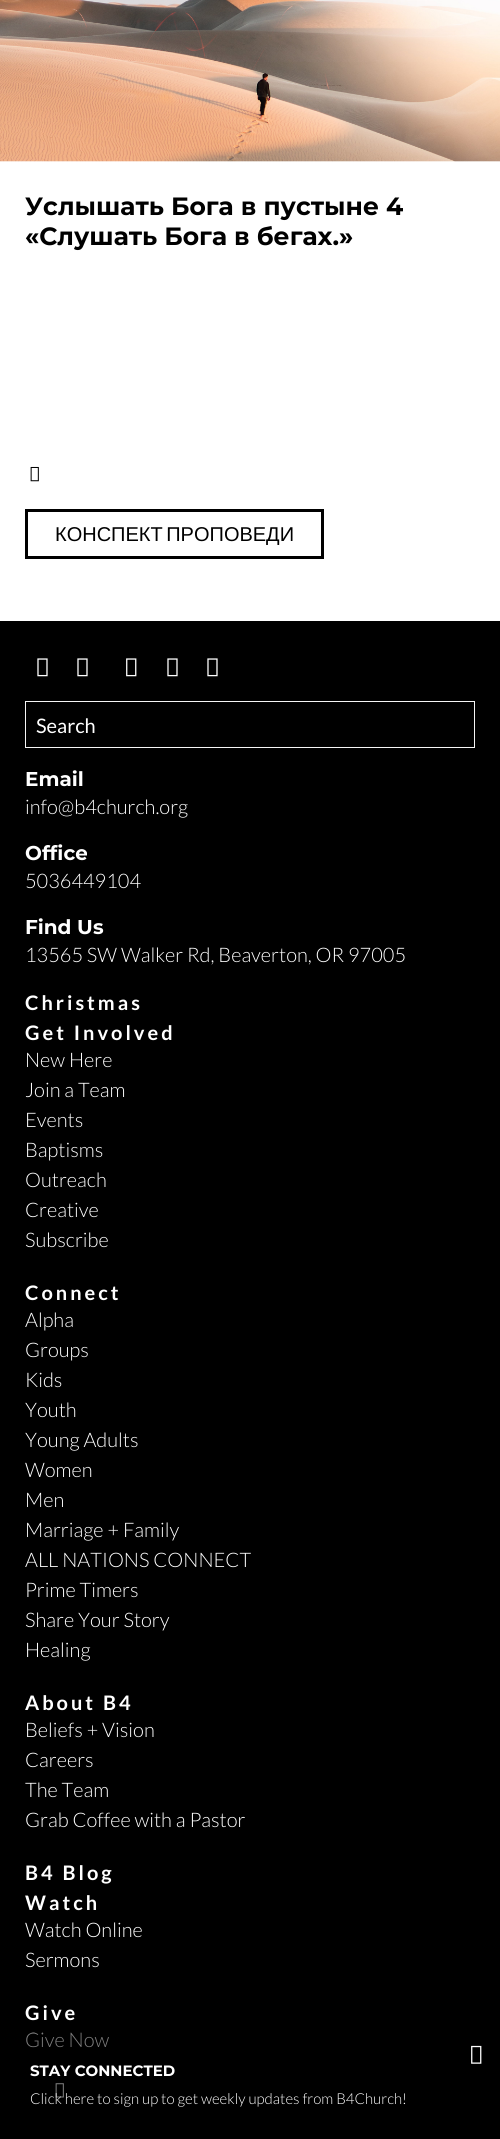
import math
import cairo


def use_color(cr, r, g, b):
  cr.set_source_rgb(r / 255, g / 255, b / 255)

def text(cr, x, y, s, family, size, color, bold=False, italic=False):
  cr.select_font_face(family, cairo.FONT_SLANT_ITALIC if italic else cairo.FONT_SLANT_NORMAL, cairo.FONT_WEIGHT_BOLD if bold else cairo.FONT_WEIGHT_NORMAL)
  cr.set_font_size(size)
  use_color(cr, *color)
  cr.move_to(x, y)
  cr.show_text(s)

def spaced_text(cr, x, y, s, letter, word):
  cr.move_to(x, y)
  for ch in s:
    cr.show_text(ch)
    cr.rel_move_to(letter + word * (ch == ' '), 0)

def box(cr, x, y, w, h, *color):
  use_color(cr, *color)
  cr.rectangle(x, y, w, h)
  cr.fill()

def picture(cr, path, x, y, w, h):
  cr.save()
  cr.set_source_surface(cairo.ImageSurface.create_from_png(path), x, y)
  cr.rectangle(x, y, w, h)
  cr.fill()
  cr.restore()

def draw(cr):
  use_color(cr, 255, 255, 255)
  cr.paint()
  picture(cr, "img_01.png", 0, 0, 500, 162)
  picture(cr, "img_02.png", 0, 161, 500, 1)
  picture(cr, "img_03.png", 30, 466, 9, 16)
  cr.rectangle(26.5, 510.5, 296, 47)
  use_color(cr, 0, 0, 0)
  cr.set_line_width(3)
  cr.stroke()
  box(cr, 0, 621, 500, 1518, 0, 0, 0)
  picture(cr, "img_04.png", 37, 658, 11, 19)
  picture(cr, "img_04.png", 77, 658, 11, 19)
  picture(cr, "img_05.png", 126, 658, 11, 19)
  picture(cr, "img_04.png", 167, 658, 11, 19)
  picture(cr, "img_04.png", 207, 658, 11, 19)
  cr.rectangle(25.5, 701.5, 449, 46)
  use_color(cr, 246, 246, 246)
  cr.set_line_width(1)
  cr.stroke()
  picture(cr, "img_06.png", 55, 2083, 9, 15)
  picture(cr, "img_07.png", 471, 2045, 11, 19)
  text(cr, 25, 215, "Услышать Бога в пустыне 4", "Montserrat", 25, (0, 0, 0), bold=True)
  text(cr, 25, 245, "«Слушать Бога в бегах.»", "Montserrat", 25, (0, 0, 0), bold=True)
  cr.select_font_face("Liberation Sans")
  cr.set_font_size(20)
  spaced_text(cr, 55, 541, "КОНСПЕКТ ПРОПОВЕДИ", 0, -2)
  text(cr, 36, 733, "Search", "Lato", 20, (255, 255, 255))
  text(cr, 25, 786, "Email", "Montserrat", 20, (255, 255, 255), bold=True)
  text(cr, 25, 814, "info@b4church.org", "Lato Light", 20, (255, 255, 255))
  text(cr, 25, 860, "Office", "Montserrat", 20, (255, 255, 255), bold=True)
  text(cr, 25, 888, "5036449104", "Lato Light", 20, (255, 255, 255))
  text(cr, 25, 934, "Find Us", "Montserrat", 20, (255, 255, 255), bold=True)
  text(cr, 25, 962, "13565 SW Walker Rd, Beaverton, OR 97005", "Lato Light", 20, (255, 255, 255))
  cr.select_font_face("Lato", cairo.FONT_SLANT_NORMAL, cairo.FONT_WEIGHT_BOLD)
  spaced_text(cr, 25, 1010, "Christmas", 3, 0)
  spaced_text(cr, 25, 1040, "Get Involved", 3, 0)
  text(cr, 25, 1067, "New Here", "Lato Light", 20, (255, 255, 255))
  text(cr, 25, 1097, "Join a Team", "Lato Light", 20, (255, 255, 255))
  text(cr, 25, 1127, "Events", "Lato Light", 20, (255, 255, 255))
  text(cr, 25, 1157, "Baptisms", "Lato Light", 20, (255, 255, 255))
  text(cr, 25, 1187, "Outreach", "Lato Light", 20, (255, 255, 255))
  text(cr, 25, 1217, "Creative", "Lato Light", 20, (255, 255, 255))
  text(cr, 25, 1247, "Subscribe", "Lato Light", 20, (255, 255, 255))
  cr.select_font_face("Lato", cairo.FONT_SLANT_NORMAL, cairo.FONT_WEIGHT_BOLD)
  spaced_text(cr, 25, 1300, "Connect", 3, 0)
  text(cr, 25, 1327, "Alpha", "Lato Light", 20, (255, 255, 255))
  text(cr, 25, 1357, "Groups", "Lato Light", 20, (255, 255, 255))
  text(cr, 25, 1387, "Kids", "Lato Light", 20, (255, 255, 255))
  text(cr, 25, 1417, "Youth", "Lato Light", 20, (255, 255, 255))
  text(cr, 25, 1447, "Young Adults", "Lato Light", 20, (255, 255, 255))
  text(cr, 25, 1477, "Women", "Lato Light", 20, (255, 255, 255))
  text(cr, 25, 1507, "Men", "Lato Light", 20, (255, 255, 255))
  text(cr, 25, 1537, "Marriage + Family", "Lato Light", 20, (255, 255, 255))
  text(cr, 25, 1567, "ALL NATIONS CONNECT", "Lato Light", 20, (255, 255, 255))
  text(cr, 25, 1597, "Prime Timers", "Lato Light", 20, (255, 255, 255))
  text(cr, 25, 1627, "Share Your Story", "Lato Light", 20, (255, 255, 255))
  text(cr, 25, 1657, "Healing", "Lato Light", 20, (255, 255, 255))
  cr.select_font_face("Lato", cairo.FONT_SLANT_NORMAL, cairo.FONT_WEIGHT_BOLD)
  spaced_text(cr, 25, 1710, "About B4", 3, 0)
  text(cr, 25, 1737, "Beliefs + Vision", "Lato Light", 20, (255, 255, 255))
  text(cr, 25, 1767, "Careers", "Lato Light", 20, (255, 255, 255))
  text(cr, 25, 1797, "The Team", "Lato Light", 20, (255, 255, 255))
  text(cr, 25, 1827, "Grab Coffee with a Pastor", "Lato Light", 20, (255, 255, 255))
  cr.select_font_face("Lato", cairo.FONT_SLANT_NORMAL, cairo.FONT_WEIGHT_BOLD)
  spaced_text(cr, 25, 1880, "B4 Blog", 3, 0)
  spaced_text(cr, 25, 1910, "Watch", 3, 0)
  text(cr, 25, 1937, "Watch Online", "Lato Light", 20, (255, 255, 255))
  text(cr, 25, 1967, "Sermons", "Lato Light", 20, (255, 255, 255))
  cr.select_font_face("Lato", cairo.FONT_SLANT_NORMAL, cairo.FONT_WEIGHT_BOLD)
  spaced_text(cr, 25, 2020, "Give", 3, 0)
  text(cr, 25, 2047, "Give Now", "Lato Light", 20, (255, 255, 255))
  cr.set_source_rgba(0, 0, 0, 0.5)
  cr.rectangle(26, 2033, 83, 65)
  cr.fill()
  text(cr, 30, 2076, "STAY CONNECTED", "Montserrat", 15, (255, 255, 255), bold=True)
  text(cr, 30, 2104, "Click here to sign up to get weekly updates from B4Church!", "Lato Light", 15, (255, 255, 255))


surface = cairo.ImageSurface(cairo.FORMAT_RGB24, 500, 2139)
cr = cairo.Context(surface)
options = cairo.FontOptions()
options.set_hint_metrics(cairo.HINT_METRICS_OFF)
options.set_hint_style(cairo.HINT_STYLE_NONE)
cr.set_font_options(options)
cr.set_miter_limit(4)
draw(cr)
surface.write_to_png("out.png")
